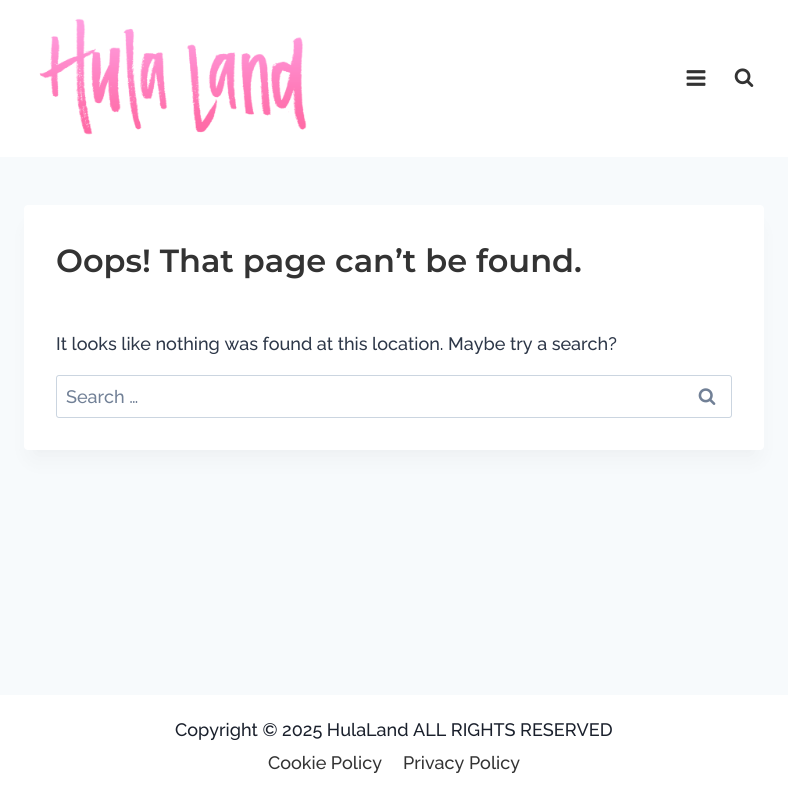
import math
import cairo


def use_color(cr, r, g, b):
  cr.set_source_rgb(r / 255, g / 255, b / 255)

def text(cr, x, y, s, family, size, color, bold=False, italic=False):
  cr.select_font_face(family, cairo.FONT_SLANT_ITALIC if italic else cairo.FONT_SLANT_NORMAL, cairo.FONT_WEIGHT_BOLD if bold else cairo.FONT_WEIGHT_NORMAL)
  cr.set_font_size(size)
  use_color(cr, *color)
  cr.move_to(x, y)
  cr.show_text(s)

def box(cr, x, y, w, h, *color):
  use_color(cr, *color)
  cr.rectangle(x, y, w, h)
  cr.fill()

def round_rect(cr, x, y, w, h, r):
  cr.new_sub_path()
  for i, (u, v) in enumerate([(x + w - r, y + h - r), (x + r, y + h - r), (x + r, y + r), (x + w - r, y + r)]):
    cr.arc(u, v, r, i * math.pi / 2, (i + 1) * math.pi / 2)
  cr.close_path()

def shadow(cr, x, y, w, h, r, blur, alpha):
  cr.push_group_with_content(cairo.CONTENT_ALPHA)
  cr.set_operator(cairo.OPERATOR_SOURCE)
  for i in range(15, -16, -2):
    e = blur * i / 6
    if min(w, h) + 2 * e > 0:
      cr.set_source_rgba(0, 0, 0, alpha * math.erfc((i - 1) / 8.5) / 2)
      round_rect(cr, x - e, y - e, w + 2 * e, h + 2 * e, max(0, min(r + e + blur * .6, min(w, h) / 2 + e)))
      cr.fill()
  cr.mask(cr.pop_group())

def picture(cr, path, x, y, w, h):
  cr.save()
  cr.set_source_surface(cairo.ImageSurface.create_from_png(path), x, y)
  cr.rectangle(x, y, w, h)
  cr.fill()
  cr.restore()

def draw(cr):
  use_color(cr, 247, 250, 252)
  cr.paint()
  box(cr, 0, 0, 788, 157, 255, 255, 255)
  picture(cr, "img_01.png", 39, 18, 268, 117)
  picture(cr, "img_02.png", 686, 70, 20, 16)
  picture(cr, "img_03.png", 734, 68, 20, 19)
  use_color(cr, 0, 0, 0)
  shadow(cr, 34, 230, 720, 225, 0, 12.5, 0.05)
  use_color(cr, 255, 255, 255)
  round_rect(cr, 24, 205, 740, 245, 4)
  cr.fill()
  round_rect(cr, 56.5, 375.5, 675, 42, 2.5)
  use_color(cr, 203, 213, 224)
  cr.set_line_width(1)
  cr.stroke()
  picture(cr, "img_04.png", 698, 388, 18, 17)
  box(cr, 0, 695, 788, 96, 255, 255, 255)
  text(cr, 56, 272, "Oops! That page can’t be found.", "Montserrat Thin", 32, (51, 51, 51))
  text(cr, 56, 350, "It looks like nothing was found at this location. Maybe try a search?", "Raleway Medium", 18, (45, 55, 72))
  text(cr, 66, 403, "Search …", "Raleway Medium", 18, (113, 128, 150))
  text(cr, 175, 736, "Copyright © 2025 HulaLand ALL RIGHTS RESERVED", "Raleway Medium", 18, (26, 32, 44))
  text(cr, 268, 769, "Cookie Policy", "Raleway Medium", 18, (51, 51, 51))
  text(cr, 403, 769, "Privacy Policy", "Raleway Medium", 18, (51, 51, 51))


surface = cairo.ImageSurface(cairo.FORMAT_RGB24, 788, 791)
cr = cairo.Context(surface)
options = cairo.FontOptions()
options.set_hint_metrics(cairo.HINT_METRICS_OFF)
options.set_hint_style(cairo.HINT_STYLE_NONE)
cr.set_font_options(options)
cr.set_miter_limit(4)
draw(cr)
surface.write_to_png("out.png")
